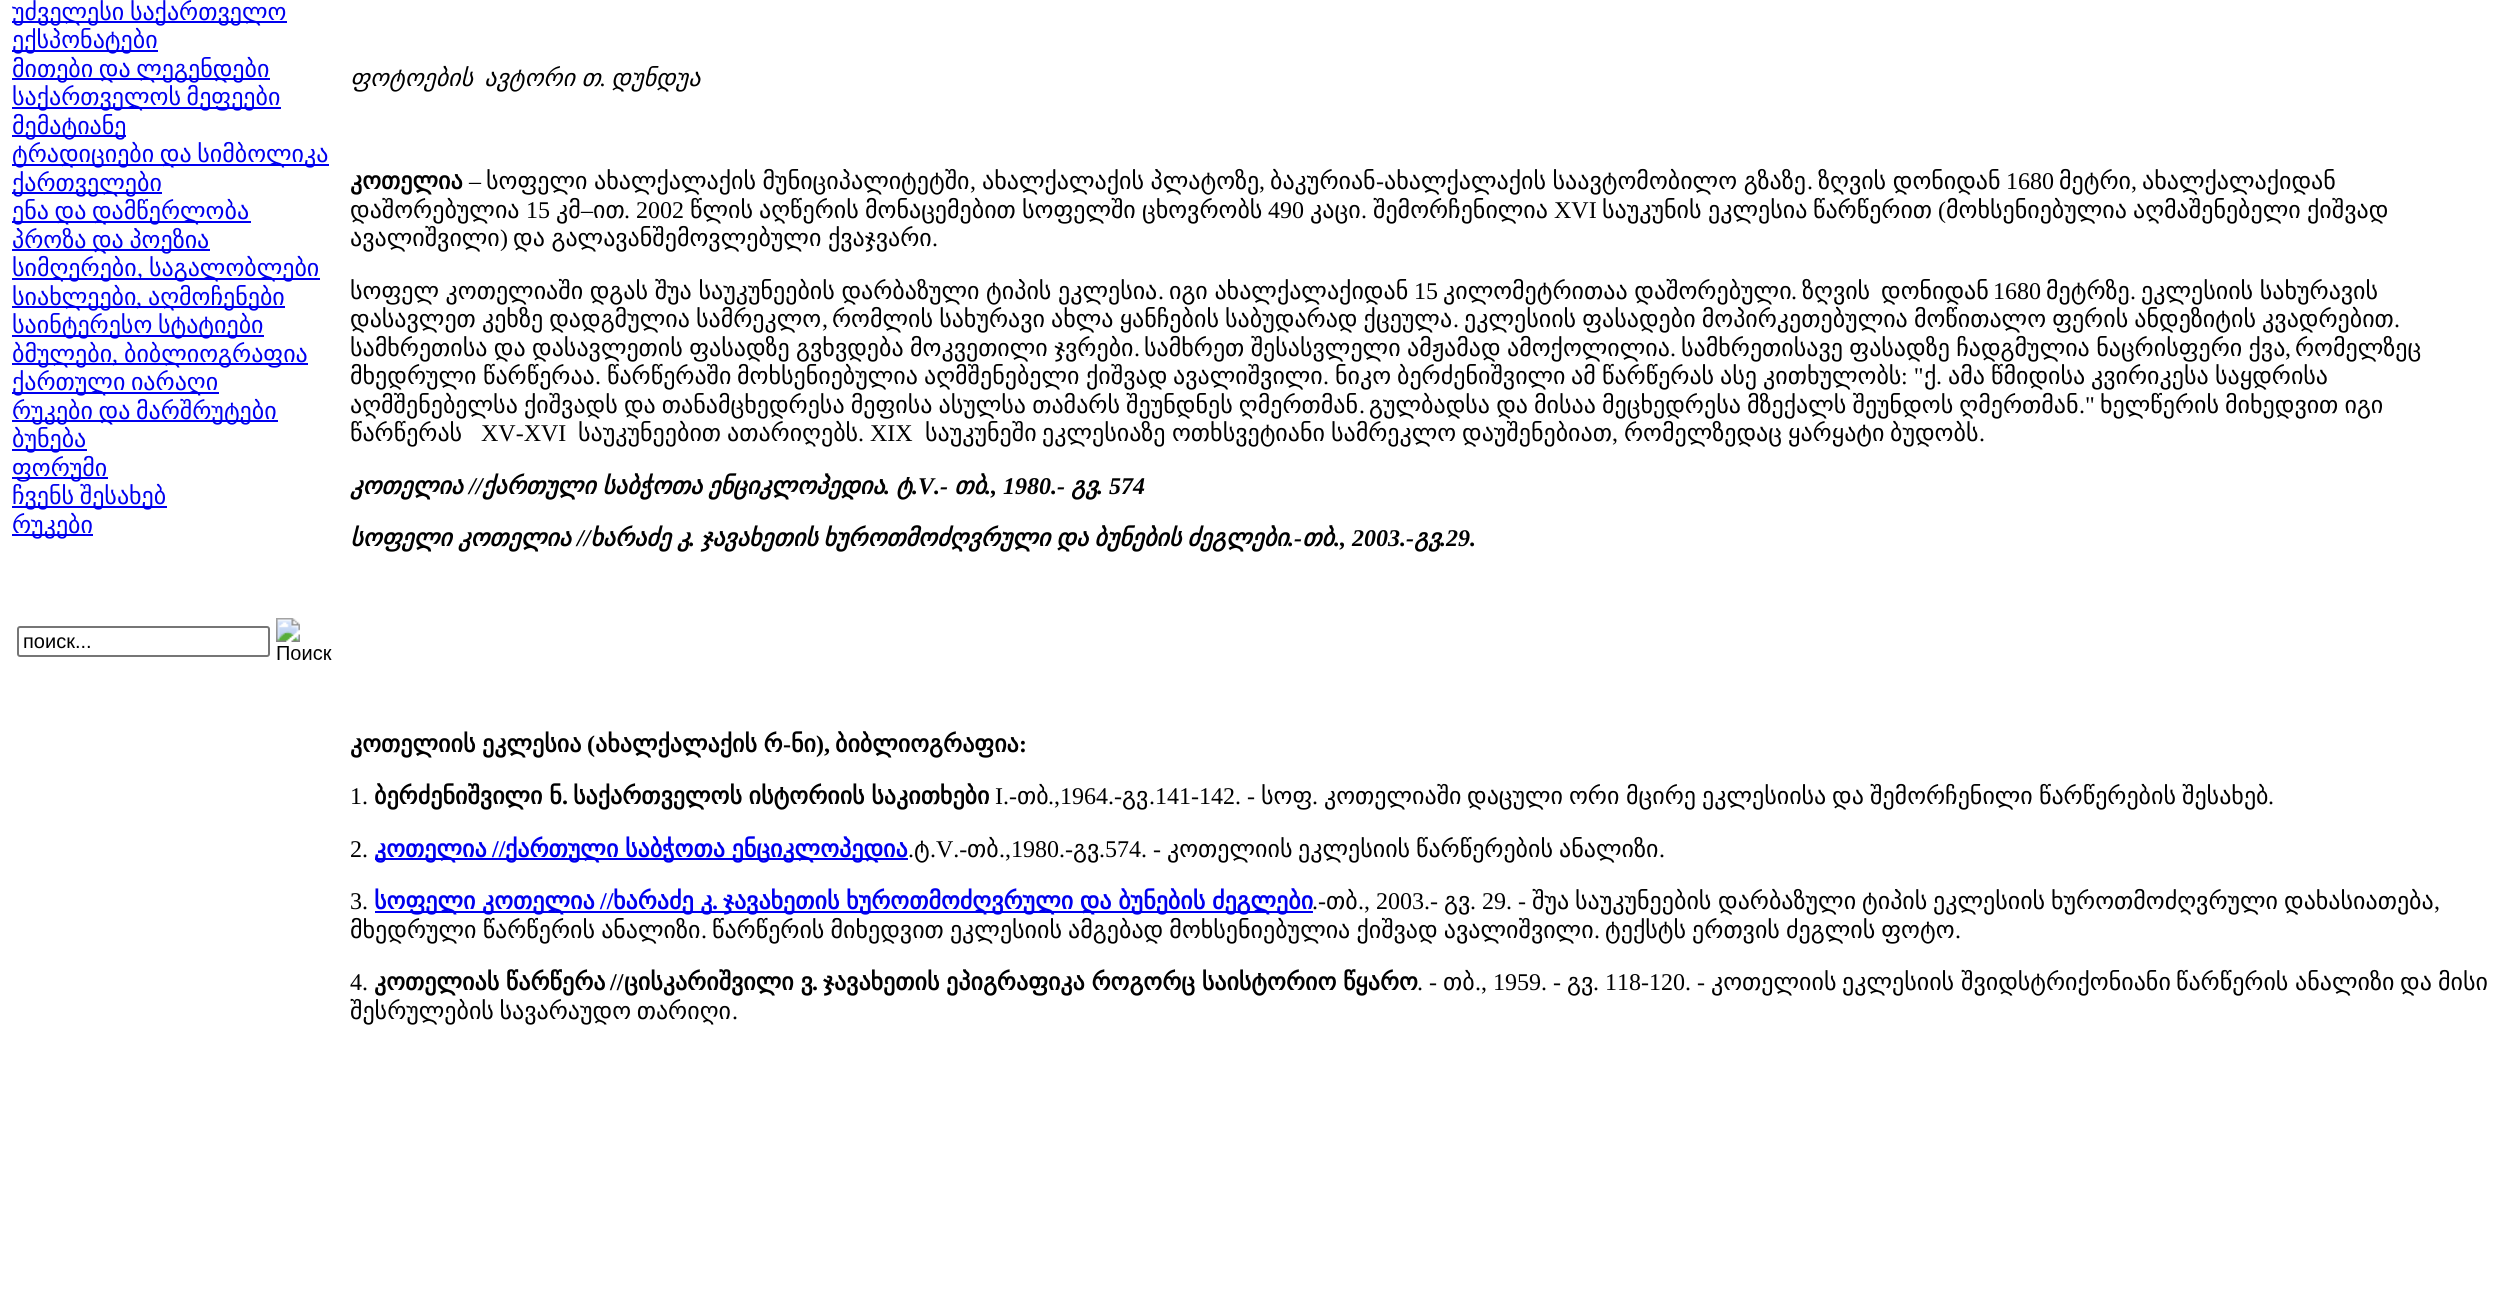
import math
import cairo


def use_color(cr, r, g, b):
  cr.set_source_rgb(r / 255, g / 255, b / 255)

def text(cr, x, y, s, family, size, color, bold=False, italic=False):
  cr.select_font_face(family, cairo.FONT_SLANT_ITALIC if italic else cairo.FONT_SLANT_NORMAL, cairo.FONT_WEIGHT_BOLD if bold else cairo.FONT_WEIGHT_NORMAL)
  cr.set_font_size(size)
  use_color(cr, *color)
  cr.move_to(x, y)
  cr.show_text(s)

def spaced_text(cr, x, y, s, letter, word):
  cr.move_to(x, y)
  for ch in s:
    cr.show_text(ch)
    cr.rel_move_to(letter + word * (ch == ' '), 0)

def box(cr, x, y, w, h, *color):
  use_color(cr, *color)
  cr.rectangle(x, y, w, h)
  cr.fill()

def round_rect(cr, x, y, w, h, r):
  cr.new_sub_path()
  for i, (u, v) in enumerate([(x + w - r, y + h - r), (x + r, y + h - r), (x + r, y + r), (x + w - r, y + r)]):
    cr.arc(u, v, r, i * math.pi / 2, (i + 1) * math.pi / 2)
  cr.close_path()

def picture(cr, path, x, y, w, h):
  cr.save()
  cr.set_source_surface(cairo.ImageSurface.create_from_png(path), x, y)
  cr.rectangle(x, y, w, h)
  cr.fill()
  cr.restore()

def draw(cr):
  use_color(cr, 255, 255, 255)
  cr.paint()
  box(cr, 12, 21, 275, 2, 0, 0, 238)
  box(cr, 12, 50, 146, 2, 0, 0, 238)
  box(cr, 12, 78, 258, 2, 0, 0, 238)
  box(cr, 12, 107, 269, 2, 0, 0, 238)
  box(cr, 12, 135, 114, 2, 0, 0, 238)
  box(cr, 12, 164, 317, 2, 0, 0, 238)
  box(cr, 12, 192, 150, 2, 0, 0, 238)
  box(cr, 12, 221, 239, 2, 0, 0, 238)
  box(cr, 12, 249, 198, 2, 0, 0, 238)
  box(cr, 12, 278, 308, 2, 0, 0, 238)
  box(cr, 12, 306, 273, 2, 0, 0, 238)
  box(cr, 12, 335, 252, 2, 0, 0, 238)
  box(cr, 12, 363, 296, 2, 0, 0, 238)
  box(cr, 12, 392, 207, 2, 0, 0, 238)
  box(cr, 12, 420, 266, 2, 0, 0, 238)
  box(cr, 12, 449, 75, 2, 0, 0, 238)
  box(cr, 12, 477, 96, 2, 0, 0, 238)
  box(cr, 12, 506, 155, 2, 0, 0, 238)
  box(cr, 12, 534, 81, 2, 0, 0, 238)
  round_rect(cr, 18, 627, 251, 29, 2)
  use_color(cr, 118, 118, 118)
  cr.stroke()
  picture(cr, "img_01.png", 276, 618, 56, 42)
  box(cr, 375, 858, 533, 2, 0, 0, 238)
  box(cr, 375, 911, 938, 2, 0, 0, 238)
  cr.select_font_face("DejaVu Sans")
  cr.set_font_size(24)
  spaced_text(cr, 12, 20, "უძველესი საქართველო", 0, -2)
  text(cr, 12, 48, "ექსპონატები", "DejaVu Sans", 24, (0, 0, 238))
  spaced_text(cr, 12, 77, "მითები და ლეგენდები", 0, -2)
  spaced_text(cr, 12, 105, "საქართველოს მეფეები", 0, -2)
  text(cr, 12, 134, "მემატიანე", "DejaVu Sans", 24, (0, 0, 238))
  spaced_text(cr, 12, 162, "ტრადიციები და სიმბოლიკა", 0, -2)
  text(cr, 12, 191, "ქართველები", "DejaVu Sans", 24, (0, 0, 238))
  spaced_text(cr, 12, 219, "ენა და დამწერლობა", 0, -2)
  spaced_text(cr, 12, 248, "პროზა და პოეზია", 0, -2)
  text(cr, 12, 276, "სიმღერები", "DejaVu Sans", 24, (0, 0, 238))
  text(cr, 137, 276, ",", "Liberation Serif", 24, (0, 0, 238))
  text(cr, 149, 276, "საგალობლები", "DejaVu Sans", 24, (0, 0, 238))
  text(cr, 12, 305, "სიახლეები", "DejaVu Sans", 24, (0, 0, 238))
  text(cr, 136, 305, ",", "Liberation Serif", 24, (0, 0, 238))
  text(cr, 148, 305, "აღმოჩენები", "DejaVu Sans", 24, (0, 0, 238))
  spaced_text(cr, 12, 333, "საინტერესო სტატიები", 0, -2)
  text(cr, 12, 362, "ბმულები", "DejaVu Sans", 24, (0, 0, 238))
  text(cr, 112, 362, ",", "Liberation Serif", 24, (0, 0, 238))
  text(cr, 124, 362, "ბიბლიოგრაფია", "DejaVu Sans", 24, (0, 0, 238))
  spaced_text(cr, 12, 390, "ქართული იარაღი", 0, -2)
  spaced_text(cr, 12, 419, "რუკები და მარშრუტები", 0, -2)
  text(cr, 12, 447, "ბუნება", "DejaVu Sans", 24, (0, 0, 238))
  text(cr, 12, 476, "ფორუმი", "DejaVu Sans", 24, (0, 0, 238))
  spaced_text(cr, 12, 504, "ჩვენს შესახებ", 0, -2)
  text(cr, 12, 533, "რუკები", "DejaVu Sans", 24, (0, 0, 238))
  text(cr, 23, 648, "поиск...", "Liberation Sans", 20, (0, 0, 0))
  text(cr, 350, 86, "ფოტოების", "DejaVu Sans", 24, (0, 0, 0), italic=True)
  spaced_text(cr, 484, 86, "ავტორი თ", 0, -1)
  text(cr, 600, 86, ".", "Liberation Serif", 24, (0, 0, 0), italic=True)
  text(cr, 611, 86, "დუნდუა", "DejaVu Sans", 24, (0, 0, 0), italic=True)
  text(cr, 350, 189, "კოთელია", "DejaVu Sans", 24, (0, 0, 0), bold=True)
  text(cr, 469, 189, "–", "Liberation Serif", 24, (0, 0, 0))
  cr.select_font_face("DejaVu Sans")
  spaced_text(cr, 486, 189, "სოფელი ახალქალაქის მუნიციპალიტეტში", 0, -1)
  spaced_text(cr, 982, 189, "ახალქალაქის პლატოზე", 0, -1)
  text(cr, 1270, 189, "ბაკურიან", "DejaVu Sans", 24, (0, 0, 0))
  text(cr, 1376, 189, "-", "Liberation Serif", 24, (0, 0, 0))
  cr.select_font_face("DejaVu Sans")
  spaced_text(cr, 1384, 189, "ახალქალაქის საავტომობილო გზაზე", 0, -1)
  spaced_text(cr, 1818, 189, "ზღვის დონიდან", 0, -1)
  text(cr, 2006, 189, "1680", "Liberation Serif", 24, (0, 0, 0))
  text(cr, 2059, 189, "მეტრი", "DejaVu Sans", 24, (0, 0, 0))
  text(cr, 2142, 189, "ახალქალაქიდან", "DejaVu Sans", 24, (0, 0, 0))
  text(cr, 970, 189, ",", "Liberation Serif", 24, (0, 0, 0))
  text(cr, 1259, 189, ",", "Liberation Serif", 24, (0, 0, 0))
  text(cr, 1807, 189, ".", "Liberation Serif", 24, (0, 0, 0))
  text(cr, 2131, 189, ",", "Liberation Serif", 24, (0, 0, 0))
  text(cr, 350, 218, "დაშორებულია", "DejaVu Sans", 24, (0, 0, 0))
  text(cr, 526, 218, "15", "Liberation Serif", 24, (0, 0, 0))
  text(cr, 556, 218, "კმ", "DejaVu Sans", 24, (0, 0, 0))
  text(cr, 581, 218, "–", "Liberation Serif", 24, (0, 0, 0))
  text(cr, 593, 218, "ით", "DejaVu Sans", 24, (0, 0, 0))
  text(cr, 624, 218, ". 2002", "Liberation Serif", 24, (0, 0, 0))
  text(cr, 690, 218, "წლის", "DejaVu Sans", 24, (0, 0, 0))
  text(cr, 759, 218, "აღწერის", "DejaVu Sans", 24, (0, 0, 0))
  text(cr, 865, 218, "მონაცემებით", "DejaVu Sans", 24, (0, 0, 0))
  text(cr, 1022, 218, "სოფელში", "DejaVu Sans", 24, (0, 0, 0))
  text(cr, 1142, 218, "ცხოვრობს", "DejaVu Sans", 24, (0, 0, 0))
  text(cr, 1268, 218, "490", "Liberation Serif", 24, (0, 0, 0))
  text(cr, 1310, 218, "კაცი", "DejaVu Sans", 24, (0, 0, 0))
  text(cr, 1373, 218, "შემორჩენილია", "DejaVu Sans", 24, (0, 0, 0))
  text(cr, 1554, 218, "XVI", "Liberation Serif", 24, (0, 0, 0))
  text(cr, 1602, 218, "საუკუნის", "DejaVu Sans", 24, (0, 0, 0))
  text(cr, 1708, 218, "ეკლესია", "DejaVu Sans", 24, (0, 0, 0))
  text(cr, 1813, 218, "წარწერით", "DejaVu Sans", 24, (0, 0, 0))
  text(cr, 1938, 218, "(", "Liberation Serif", 24, (0, 0, 0))
  text(cr, 1946, 218, "მოხსენიებულია", "DejaVu Sans", 24, (0, 0, 0))
  text(cr, 2133, 218, "აღმაშენებელი", "DejaVu Sans", 24, (0, 0, 0))
  text(cr, 2307, 218, "ქიშვად", "DejaVu Sans", 24, (0, 0, 0))
  text(cr, 1361, 218, ".", "Liberation Serif", 24, (0, 0, 0))
  text(cr, 350, 246, "ავალიშვილი", "DejaVu Sans", 24, (0, 0, 0))
  text(cr, 500, 246, ")", "Liberation Serif", 24, (0, 0, 0))
  cr.select_font_face("DejaVu Sans")
  spaced_text(cr, 513, 246, "და გალავანშემოვლებული ქვაჯვარი", 0, -1)
  text(cr, 932, 246, ".", "Liberation Serif", 24, (0, 0, 0))
  cr.select_font_face("DejaVu Sans")
  spaced_text(cr, 350, 299, "სოფელ კოთელიაში დგას შუა საუკუნეების დარბაზული ტიპის ეკლესია", 0, -1)
  text(cr, 1158, 299, ".", "Liberation Serif", 24, (0, 0, 0))
  cr.select_font_face("DejaVu Sans")
  spaced_text(cr, 1169, 299, "იგი ახალქალაქიდან", 0, -1)
  text(cr, 1414, 299, "15", "Liberation Serif", 24, (0, 0, 0))
  cr.select_font_face("DejaVu Sans")
  spaced_text(cr, 1443, 299, "კილომეტრითაა დაშორებული", 0, -1)
  text(cr, 1791, 299, ".", "Liberation Serif", 24, (0, 0, 0))
  text(cr, 1802, 299, "ზღვის", "DejaVu Sans", 24, (0, 0, 0))
  text(cr, 1881, 299, "დონიდან", "DejaVu Sans", 24, (0, 0, 0))
  text(cr, 1993, 299, "1680", "Liberation Serif", 24, (0, 0, 0))
  text(cr, 2046, 299, "მეტრზე", "DejaVu Sans", 24, (0, 0, 0))
  text(cr, 2130, 299, ".", "Liberation Serif", 24, (0, 0, 0))
  cr.select_font_face("DejaVu Sans")
  spaced_text(cr, 2141, 299, "ეკლესიის სახურავის", 0, -1)
  spaced_text(cr, 350, 327, "დასავლეთ კეხზე დადგმულია სამრეკლო", 0, -1.5)
  text(cr, 822, 327, ",", "Liberation Serif", 24, (0, 0, 0))
  cr.select_font_face("DejaVu Sans")
  spaced_text(cr, 832, 327, "რომლის სახურავი ახლა ყანჩების საბუდარად ქცეულა", 0, -1.5)
  text(cr, 1453, 327, ".", "Liberation Serif", 24, (0, 0, 0))
  cr.select_font_face("DejaVu Sans")
  spaced_text(cr, 1464, 327, "ეკლესიის ფასადები მოპირკეთებულია მოწითალო ფერის ანდეზიტის კვადრებით", 0, -1.5)
  text(cr, 2394, 327, ".", "Liberation Serif", 24, (0, 0, 0))
  cr.select_font_face("DejaVu Sans")
  spaced_text(cr, 350, 356, "სამხრეთისა და დასავლეთის ფასადზე გვხვდება მოკვეთილი ჯვრები", 0, -1.25)
  text(cr, 1134, 356, ".", "Liberation Serif", 24, (0, 0, 0))
  cr.select_font_face("DejaVu Sans")
  spaced_text(cr, 1144, 356, "სამხრეთ შესასვლელი ამჟამად ამოქოლილია", 0, -1.25)
  text(cr, 1670, 356, ".", "Liberation Serif", 24, (0, 0, 0))
  cr.select_font_face("DejaVu Sans")
  spaced_text(cr, 1681, 356, "სამხრეთისავე ფასადზე ჩადგმულია ნაცრისფერი ქვა", 0, -1.25)
  text(cr, 2285, 356, ",", "Liberation Serif", 24, (0, 0, 0))
  text(cr, 2295, 356, "რომელზეც", "DejaVu Sans", 24, (0, 0, 0))
  text(cr, 350, 384, "მხედრული", "DejaVu Sans", 24, (0, 0, 0))
  text(cr, 483, 384, "წარწერაა", "DejaVu Sans", 24, (0, 0, 0))
  text(cr, 595, 384, ".", "Liberation Serif", 24, (0, 0, 0))
  text(cr, 607, 384, "წარწერაში", "DejaVu Sans", 24, (0, 0, 0))
  text(cr, 737, 384, "მოხსენიებულია", "DejaVu Sans", 24, (0, 0, 0))
  text(cr, 924, 384, "აღმშენებელი", "DejaVu Sans", 24, (0, 0, 0))
  text(cr, 1086, 384, "ქიშვად", "DejaVu Sans", 24, (0, 0, 0))
  text(cr, 1173, 384, "ავალიშვილი", "DejaVu Sans", 24, (0, 0, 0))
  text(cr, 1323, 384, ".", "Liberation Serif", 24, (0, 0, 0))
  text(cr, 1335, 384, "ნიკო", "DejaVu Sans", 24, (0, 0, 0))
  text(cr, 1397, 384, "ბერძენიშვილი", "DejaVu Sans", 24, (0, 0, 0))
  text(cr, 1571, 384, "ამ", "DejaVu Sans", 24, (0, 0, 0))
  text(cr, 1602, 384, "წარწერას", "DejaVu Sans", 24, (0, 0, 0))
  text(cr, 1720, 384, "ასე", "DejaVu Sans", 24, (0, 0, 0))
  text(cr, 1763, 384, "კითხულობს", "DejaVu Sans", 24, (0, 0, 0))
  text(cr, 1901, 384, ": \"", "Liberation Serif", 24, (0, 0, 0))
  text(cr, 1924, 384, "ქ", "DejaVu Sans", 24, (0, 0, 0))
  text(cr, 1936, 384, ".", "Liberation Serif", 24, (0, 0, 0))
  text(cr, 1948, 384, "ამა", "DejaVu Sans", 24, (0, 0, 0))
  text(cr, 1991, 384, "წმიდისა", "DejaVu Sans", 24, (0, 0, 0))
  text(cr, 2091, 384, "კვირიკესა", "DejaVu Sans", 24, (0, 0, 0))
  text(cr, 2215, 384, "საყდრისა", "DejaVu Sans", 24, (0, 0, 0))
  spaced_text(cr, 350, 413, "აღმშენებელსა ქიშვადს და თანამცხედრესა მეფისა ასულსა თამარს შეუნდნეს ღმერთმან", 0, -1.5)
  text(cr, 1359, 413, ".", "Liberation Serif", 24, (0, 0, 0))
  cr.select_font_face("DejaVu Sans")
  spaced_text(cr, 1369, 413, "გულბადსა და მისაა მეცხედრესა მზექალს შეუნდოს ღმერთმან", 0, -1.5)
  text(cr, 2079, 413, ".\"", "Liberation Serif", 24, (0, 0, 0))
  cr.select_font_face("DejaVu Sans")
  spaced_text(cr, 2100, 413, "ხელწერის მიხედვით იგი", 0, -1.5)
  text(cr, 350, 441, "წარწერას", "DejaVu Sans", 24, (0, 0, 0))
  text(cr, 481, 441, "XV-XVI", "Liberation Serif", 24, (0, 0, 0))
  text(cr, 578, 441, "საუკუნეებით", "DejaVu Sans", 24, (0, 0, 0))
  text(cr, 727, 441, "ათარიღებს", "DejaVu Sans", 24, (0, 0, 0))
  text(cr, 858, 441, ". XIX", "Liberation Serif", 24, (0, 0, 0))
  text(cr, 925, 441, "საუკუნეში", "DejaVu Sans", 24, (0, 0, 0))
  text(cr, 1042, 441, "ეკლესიაზე", "DejaVu Sans", 24, (0, 0, 0))
  text(cr, 1172, 441, "ოთხსვეტიანი", "DejaVu Sans", 24, (0, 0, 0))
  text(cr, 1331, 441, "სამრეკლო", "DejaVu Sans", 24, (0, 0, 0))
  text(cr, 1462, 441, "დაუშენებიათ", "DejaVu Sans", 24, (0, 0, 0))
  text(cr, 1612, 441, ",", "Liberation Serif", 24, (0, 0, 0))
  text(cr, 1624, 441, "რომელზედაც", "DejaVu Sans", 24, (0, 0, 0))
  text(cr, 1788, 441, "ყარყატი", "DejaVu Sans", 24, (0, 0, 0))
  text(cr, 1890, 441, "ბუდობს", "DejaVu Sans", 24, (0, 0, 0))
  text(cr, 1979, 441, ".", "Liberation Serif", 24, (0, 0, 0))
  text(cr, 350, 494, "კოთელია", "DejaVu Sans", 24, (0, 0, 0), bold=True, italic=True)
  text(cr, 469, 494, "//", "Liberation Serif", 24, (0, 0, 0), bold=True, italic=True)
  text(cr, 482, 494, "ქართული", "DejaVu Sans", 24, (0, 0, 0), bold=True, italic=True)
  text(cr, 602, 494, "საბჭოთა", "DejaVu Sans", 24, (0, 0, 0), bold=True, italic=True)
  text(cr, 708, 494, "ენციკლოპედია", "DejaVu Sans", 24, (0, 0, 0), bold=True, italic=True)
  text(cr, 884, 494, ".", "Liberation Serif", 24, (0, 0, 0), bold=True, italic=True)
  text(cr, 896, 494, "ტ", "DejaVu Sans", 24, (0, 0, 0), bold=True, italic=True)
  text(cr, 912, 494, ".V.-", "Liberation Serif", 24, (0, 0, 0), bold=True, italic=True)
  text(cr, 954, 494, "თბ", "DejaVu Sans", 24, (0, 0, 0), bold=True, italic=True)
  text(cr, 985, 494, "., 1980.-", "Liberation Serif", 24, (0, 0, 0), bold=True, italic=True)
  text(cr, 1071, 494, "გვ", "DejaVu Sans", 24, (0, 0, 0), bold=True, italic=True)
  text(cr, 1097, 494, ". 574", "Liberation Serif", 24, (0, 0, 0), bold=True, italic=True)
  text(cr, 350, 546, "სოფელი", "DejaVu Sans", 24, (0, 0, 0), bold=True, italic=True)
  text(cr, 458, 546, "კოთელია", "DejaVu Sans", 24, (0, 0, 0), bold=True, italic=True)
  text(cr, 577, 546, "//", "Liberation Serif", 24, (0, 0, 0), bold=True, italic=True)
  text(cr, 590, 546, "ხარაძე", "DejaVu Sans", 24, (0, 0, 0), bold=True, italic=True)
  text(cr, 677, 546, "კ", "DejaVu Sans", 24, (0, 0, 0), bold=True, italic=True)
  text(cr, 689, 546, ".", "Liberation Serif", 24, (0, 0, 0), bold=True, italic=True)
  text(cr, 701, 546, "ჯავახეთის", "DejaVu Sans", 24, (0, 0, 0), bold=True, italic=True)
  text(cr, 823, 546, "ხუროთმოძღვრული", "DejaVu Sans", 24, (0, 0, 0), bold=True, italic=True)
  text(cr, 1056, 546, "და", "DejaVu Sans", 24, (0, 0, 0), bold=True, italic=True)
  text(cr, 1094, 546, "ბუნების", "DejaVu Sans", 24, (0, 0, 0), bold=True, italic=True)
  text(cr, 1187, 546, "ძეგლები", "DejaVu Sans", 24, (0, 0, 0), bold=True, italic=True)
  text(cr, 1288, 546, ".-", "Liberation Serif", 24, (0, 0, 0), bold=True, italic=True)
  text(cr, 1302, 546, "თბ", "DejaVu Sans", 24, (0, 0, 0), bold=True, italic=True)
  text(cr, 1334, 546, "., 2003.-", "Liberation Serif", 24, (0, 0, 0), bold=True, italic=True)
  text(cr, 1414, 546, "გვ", "DejaVu Sans", 24, (0, 0, 0), bold=True, italic=True)
  text(cr, 1440, 546, ".29.", "Liberation Serif", 24, (0, 0, 0), bold=True, italic=True)
  cr.select_font_face("DejaVu Sans", cairo.FONT_SLANT_NORMAL, cairo.FONT_WEIGHT_BOLD)
  spaced_text(cr, 350, 752, "კოთელიის ეკლესია", 0, -1)
  text(cr, 587, 752, "(", "Liberation Serif", 24, (0, 0, 0), bold=True)
  cr.select_font_face("DejaVu Sans", cairo.FONT_SLANT_NORMAL, cairo.FONT_WEIGHT_BOLD)
  spaced_text(cr, 595, 752, "ახალქალაქის რ", 0, -1)
  text(cr, 783, 752, "-", "Liberation Serif", 24, (0, 0, 0), bold=True)
  text(cr, 791, 752, "ნი", "DejaVu Sans", 24, (0, 0, 0), bold=True)
  text(cr, 816, 752, "),", "Liberation Serif", 24, (0, 0, 0), bold=True)
  text(cr, 835, 752, "ბიბლიოგრაფია", "DejaVu Sans", 24, (0, 0, 0), bold=True)
  text(cr, 1019, 752, ":", "Liberation Serif", 24, (0, 0, 0), bold=True)
  text(cr, 350, 804, "1.", "Liberation Serif", 24, (0, 0, 0))
  cr.select_font_face("DejaVu Sans", cairo.FONT_SLANT_NORMAL, cairo.FONT_WEIGHT_BOLD)
  spaced_text(cr, 374, 804, "ბერძენიშვილი ნ", 0, -1)
  text(cr, 562, 804, ".", "Liberation Serif", 24, (0, 0, 0), bold=True)
  cr.select_font_face("DejaVu Sans", cairo.FONT_SLANT_NORMAL, cairo.FONT_WEIGHT_BOLD)
  spaced_text(cr, 573, 804, "საქართველოს ისტორიის საკითხები", 0, -1)
  text(cr, 995, 804, "I.-", "Liberation Serif", 24, (0, 0, 0))
  text(cr, 1017, 804, "თბ", "DejaVu Sans", 24, (0, 0, 0))
  text(cr, 1048, 804, ".,1964.-", "Liberation Serif", 24, (0, 0, 0))
  text(cr, 1122, 804, "გვ", "DejaVu Sans", 24, (0, 0, 0))
  text(cr, 1149, 804, ".141-142. -", "Liberation Serif", 24, (0, 0, 0))
  text(cr, 1261, 804, "სოფ", "DejaVu Sans", 24, (0, 0, 0))
  text(cr, 1312, 804, ".", "Liberation Serif", 24, (0, 0, 0))
  text(cr, 1324, 804, "კოთელიაში", "DejaVu Sans", 24, (0, 0, 0))
  text(cr, 1467, 804, "დაცული", "DejaVu Sans", 24, (0, 0, 0))
  text(cr, 1569, 804, "ორი", "DejaVu Sans", 24, (0, 0, 0))
  text(cr, 1626, 804, "მცირე", "DejaVu Sans", 24, (0, 0, 0))
  text(cr, 1702, 804, "ეკლესიისა", "DejaVu Sans", 24, (0, 0, 0))
  text(cr, 1832, 804, "და", "DejaVu Sans", 24, (0, 0, 0))
  text(cr, 1870, 804, "შემორჩენილი", "DejaVu Sans", 24, (0, 0, 0))
  text(cr, 2039, 804, "წარწერების", "DejaVu Sans", 24, (0, 0, 0))
  text(cr, 2182, 804, "შესახებ", "DejaVu Sans", 24, (0, 0, 0))
  text(cr, 2268, 804, ".", "Liberation Serif", 24, (0, 0, 0))
  text(cr, 350, 857, "2.", "Liberation Serif", 24, (0, 0, 0))
  text(cr, 374, 857, "კოთელია", "DejaVu Sans", 24, (0, 0, 238), bold=True)
  text(cr, 492, 857, "//", "Liberation Serif", 24, (0, 0, 238), bold=True)
  cr.select_font_face("DejaVu Sans", cairo.FONT_SLANT_NORMAL, cairo.FONT_WEIGHT_BOLD)
  spaced_text(cr, 505, 857, "ქართული საბჭოთა ენციკლოპედია", 0, -1)
  text(cr, 908, 857, ".", "Liberation Serif", 24, (0, 0, 0))
  text(cr, 914, 857, "ტ", "DejaVu Sans", 24, (0, 0, 0))
  text(cr, 930, 857, ".V.-", "Liberation Serif", 24, (0, 0, 0))
  text(cr, 967, 857, "თბ", "DejaVu Sans", 24, (0, 0, 0))
  text(cr, 999, 857, ".,1980.-", "Liberation Serif", 24, (0, 0, 0))
  text(cr, 1073, 857, "გვ", "DejaVu Sans", 24, (0, 0, 0))
  text(cr, 1099, 857, ".574. -", "Liberation Serif", 24, (0, 0, 0))
  text(cr, 1167, 857, "კოთელიის", "DejaVu Sans", 24, (0, 0, 0))
  text(cr, 1298, 857, "ეკლესიის", "DejaVu Sans", 24, (0, 0, 0))
  text(cr, 1416, 857, "წარწერების", "DejaVu Sans", 24, (0, 0, 0))
  text(cr, 1559, 857, "ანალიზი", "DejaVu Sans", 24, (0, 0, 0))
  text(cr, 1659, 857, ".", "Liberation Serif", 24, (0, 0, 0))
  text(cr, 350, 909, "3.", "Liberation Serif", 24, (0, 0, 0))
  cr.select_font_face("DejaVu Sans", cairo.FONT_SLANT_NORMAL, cairo.FONT_WEIGHT_BOLD)
  use_color(cr, 0, 0, 238)
  spaced_text(cr, 374, 909, "სოფელი კოთელია", 0, -1)
  text(cr, 600, 909, "//", "Liberation Serif", 24, (0, 0, 238), bold=True)
  cr.select_font_face("DejaVu Sans", cairo.FONT_SLANT_NORMAL, cairo.FONT_WEIGHT_BOLD)
  spaced_text(cr, 613, 909, "ხარაძე კ", 0, -1)
  text(cr, 712, 909, ".", "Liberation Serif", 24, (0, 0, 238), bold=True)
  cr.select_font_face("DejaVu Sans", cairo.FONT_SLANT_NORMAL, cairo.FONT_WEIGHT_BOLD)
  spaced_text(cr, 723, 909, "ჯავახეთის ხუროთმოძღვრული და ბუნების ძეგლები", 0, -1)
  text(cr, 1312, 909, ".-", "Liberation Serif", 24, (0, 0, 0))
  text(cr, 1326, 909, "თბ", "DejaVu Sans", 24, (0, 0, 0))
  text(cr, 1358, 909, "., 2003.-", "Liberation Serif", 24, (0, 0, 0))
  text(cr, 1444, 909, "გვ", "DejaVu Sans", 24, (0, 0, 0))
  text(cr, 1470, 909, ". 29. -", "Liberation Serif", 24, (0, 0, 0))
  text(cr, 1532, 909, "შუა", "DejaVu Sans", 24, (0, 0, 0))
  text(cr, 1575, 909, "საუკუნეების", "DejaVu Sans", 24, (0, 0, 0))
  text(cr, 1718, 909, "დარბაზული", "DejaVu Sans", 24, (0, 0, 0))
  text(cr, 1862, 909, "ტიპის", "DejaVu Sans", 24, (0, 0, 0))
  text(cr, 1933, 909, "ეკლესიის", "DejaVu Sans", 24, (0, 0, 0))
  text(cr, 2051, 909, "ხუროთმოძღვრული", "DejaVu Sans", 24, (0, 0, 0))
  text(cr, 2284, 909, "დახასიათება", "DejaVu Sans", 24, (0, 0, 0))
  text(cr, 2434, 909, ",", "Liberation Serif", 24, (0, 0, 0))
  cr.select_font_face("DejaVu Sans")
  spaced_text(cr, 350, 938, "მხედრული წარწერის ანალიზი", 0, -1.5)
  text(cr, 701, 938, ".", "Liberation Serif", 24, (0, 0, 0))
  cr.select_font_face("DejaVu Sans")
  spaced_text(cr, 712, 938, "წარწერის მიხედვით ეკლესიის ამგებად მოხსენიებულია ქიშვად ავალიშვილი", 0, -1.5)
  text(cr, 1594, 938, ".", "Liberation Serif", 24, (0, 0, 0))
  cr.select_font_face("DejaVu Sans")
  spaced_text(cr, 1605, 938, "ტექსტს ერთვის ძეგლის ფოტო", 0, -1.5)
  text(cr, 1955, 938, ".", "Liberation Serif", 24, (0, 0, 0))
  text(cr, 350, 990, "4.", "Liberation Serif", 24, (0, 0, 0))
  cr.select_font_face("DejaVu Sans", cairo.FONT_SLANT_NORMAL, cairo.FONT_WEIGHT_BOLD)
  spaced_text(cr, 374, 990, "კოთელიას წარწერა", 0, -1)
  text(cr, 610, 990, "//", "Liberation Serif", 24, (0, 0, 0), bold=True)
  cr.select_font_face("DejaVu Sans", cairo.FONT_SLANT_NORMAL, cairo.FONT_WEIGHT_BOLD)
  spaced_text(cr, 624, 990, "ცისკარიშვილი ვ", 0, -1)
  text(cr, 812, 990, ".", "Liberation Serif", 24, (0, 0, 0), bold=True)
  cr.select_font_face("DejaVu Sans", cairo.FONT_SLANT_NORMAL, cairo.FONT_WEIGHT_BOLD)
  spaced_text(cr, 823, 990, "ჯავახეთის ეპიგრაფიკა როგორც საისტორიო წყარო", 0, -1)
  text(cr, 1417, 990, ". -", "Liberation Serif", 24, (0, 0, 0))
  text(cr, 1443, 990, "თბ", "DejaVu Sans", 24, (0, 0, 0))
  text(cr, 1475, 990, "., 1959. -", "Liberation Serif", 24, (0, 0, 0))
  text(cr, 1567, 990, "გვ", "DejaVu Sans", 24, (0, 0, 0))
  text(cr, 1593, 990, ". 118-120. -", "Liberation Serif", 24, (0, 0, 0))
  text(cr, 1711, 990, "კოთელიის", "DejaVu Sans", 24, (0, 0, 0))
  text(cr, 1842, 990, "ეკლესიის", "DejaVu Sans", 24, (0, 0, 0))
  text(cr, 1961, 990, "შვიდსტრიქონიანი", "DejaVu Sans", 24, (0, 0, 0))
  text(cr, 2176, 990, "წარწერის", "DejaVu Sans", 24, (0, 0, 0))
  text(cr, 2295, 990, "ანალიზი", "DejaVu Sans", 24, (0, 0, 0))
  text(cr, 2400, 990, "და", "DejaVu Sans", 24, (0, 0, 0))
  text(cr, 2438, 990, "მისი", "DejaVu Sans", 24, (0, 0, 0))
  spaced_text(cr, 350, 1019, "შესრულების სავარაუდო თარიღი", 0, -2)
  text(cr, 732, 1019, ".", "Liberation Serif", 24, (0, 0, 0))


surface = cairo.ImageSurface(cairo.FORMAT_RGB24, 2515, 1292)
cr = cairo.Context(surface)
options = cairo.FontOptions()
options.set_hint_metrics(cairo.HINT_METRICS_OFF)
options.set_hint_style(cairo.HINT_STYLE_NONE)
cr.set_font_options(options)
cr.set_miter_limit(4)
draw(cr)
surface.write_to_png("out.png")
